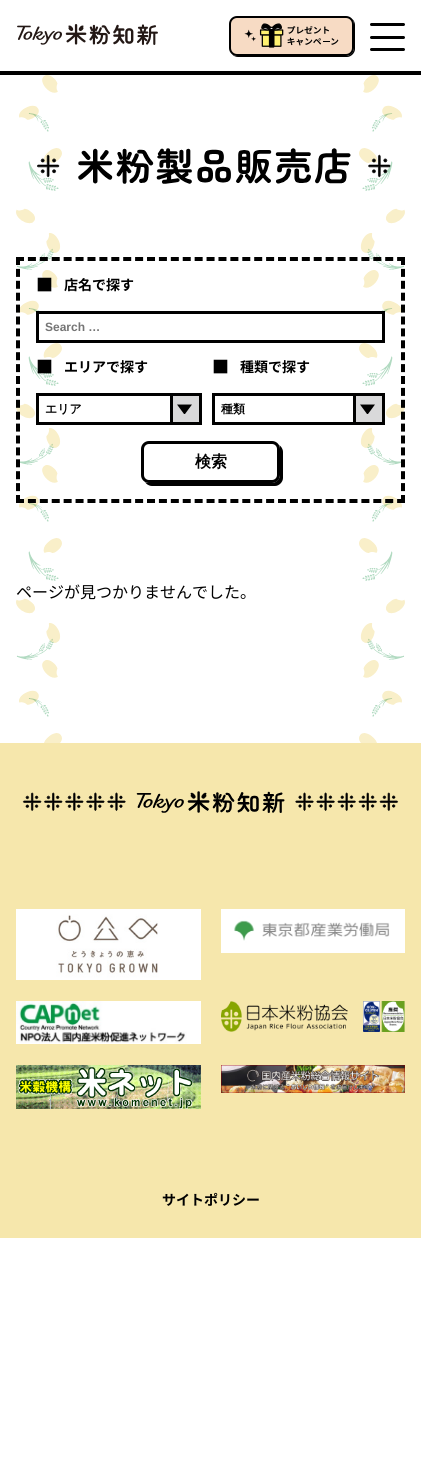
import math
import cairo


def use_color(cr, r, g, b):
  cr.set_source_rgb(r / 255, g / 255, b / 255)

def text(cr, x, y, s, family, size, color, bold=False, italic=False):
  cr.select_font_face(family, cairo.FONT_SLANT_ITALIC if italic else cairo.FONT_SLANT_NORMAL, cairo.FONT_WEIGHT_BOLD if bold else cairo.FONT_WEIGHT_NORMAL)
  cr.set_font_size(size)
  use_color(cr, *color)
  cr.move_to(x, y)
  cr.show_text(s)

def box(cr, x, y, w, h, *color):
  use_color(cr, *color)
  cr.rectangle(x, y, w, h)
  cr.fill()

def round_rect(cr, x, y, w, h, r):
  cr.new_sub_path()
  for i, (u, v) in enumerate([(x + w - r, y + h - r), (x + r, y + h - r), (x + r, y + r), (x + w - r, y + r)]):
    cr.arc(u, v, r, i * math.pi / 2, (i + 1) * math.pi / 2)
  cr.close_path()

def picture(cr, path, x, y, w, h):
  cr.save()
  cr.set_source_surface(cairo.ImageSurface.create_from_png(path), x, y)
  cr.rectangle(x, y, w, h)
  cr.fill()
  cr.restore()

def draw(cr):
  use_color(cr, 255, 255, 255)
  cr.paint()
  box(cr, 0, 71, 421, 4, 0, 0, 0)
  picture(cr, "img_01.png", 17, 24, 141, 21)
  cr.new_path()
  cr.move_to(232, 54)
  cr.curve_to(233, 56, 236, 57, 238, 57)
  cr.line_to(347, 57)
  cr.curve_to(351, 57, 355, 53, 355, 49)
  cr.line_to(355, 25)
  cr.curve_to(355, 23, 354, 20, 352, 19)
  cr.curve_to(353, 20, 354, 22, 354, 24)
  cr.line_to(354, 48)
  cr.curve_to(354, 52, 350, 56, 346, 56)
  cr.line_to(237, 56)
  cr.curve_to(235, 56, 233, 55, 232, 54)
  cr.close_path()
  cr.fill()
  use_color(cr, 247, 219, 196)
  round_rect(cr, 230, 17, 123, 38, 7)
  cr.fill_preserve()
  use_color(cr, 0, 0, 0)
  cr.stroke()
  picture(cr, "img_02.png", 244, 23, 95, 25)
  round_rect(cr, 370, 23, 35, 3, 1.5)
  cr.fill()
  round_rect(cr, 370, 36, 35, 3, 1.5)
  cr.fill()
  round_rect(cr, 370, 48, 35, 3, 1.5)
  cr.fill()
  picture(cr, "img_03.png", 16, 75, 46, 668)
  picture(cr, "img_04.png", 359, 75, 46, 668)
  picture(cr, "img_05.png", 37, 148, 354, 36)
  cr.new_path()
  cr.move_to(16, 259)
  cr.line_to(405, 259)
  cr.set_line_width(4)
  cr.set_dash([8, 3.91])
  cr.stroke()
  cr.new_path()
  cr.move_to(403, 257)
  cr.line_to(403, 503)
  cr.set_dash([8, 3.9])
  cr.stroke()
  cr.new_path()
  cr.move_to(16, 501)
  cr.line_to(405, 501)
  cr.set_dash([8, 3.91])
  cr.stroke()
  cr.new_path()
  cr.move_to(18, 257)
  cr.line_to(18, 503)
  cr.set_dash([8, 3.9])
  cr.stroke()
  box(cr, 40, 314, 341, 13, 255, 255, 255)
  cr.rectangle(37.5, 312.5, 346, 29)
  use_color(cr, 0, 0, 0)
  cr.set_line_width(3)
  cr.set_dash([])
  cr.stroke()
  cr.rectangle(37.5, 394.5, 163, 29)
  cr.stroke()
  use_color(cr, 217, 217, 218)
  cr.rectangle(171.5, 394.5, 29, 29)
  cr.fill_preserve()
  use_color(cr, 0, 0, 0)
  cr.stroke()
  cr.new_path()
  cr.move_to(177, 404.5)
  cr.line_to(192, 404.5)
  cr.line_to(185, 414)
  cr.line_to(184, 414)
  cr.close_path()
  cr.fill()
  cr.rectangle(213.5, 394.5, 170, 29)
  cr.stroke()
  use_color(cr, 217, 217, 218)
  cr.rectangle(354.5, 394.5, 29, 29)
  cr.fill_preserve()
  use_color(cr, 0, 0, 0)
  cr.stroke()
  cr.new_path()
  cr.move_to(360, 404.5)
  cr.line_to(375, 404.5)
  cr.line_to(368, 414)
  cr.line_to(367, 414)
  cr.close_path()
  cr.fill()
  cr.new_path()
  cr.move_to(145, 482)
  cr.curve_to(146, 484, 149, 486, 152, 486)
  cr.line_to(275, 486)
  cr.curve_to(279, 486, 283, 482, 283, 478)
  cr.line_to(283, 452)
  cr.curve_to(283, 449, 281, 446, 279, 445)
  cr.curve_to(280, 446, 280, 448, 280, 449)
  cr.line_to(280, 475)
  cr.curve_to(280, 479, 276, 483, 272, 483)
  cr.line_to(149, 483)
  cr.curve_to(148, 483, 146, 483, 145, 482)
  cr.close_path()
  cr.fill()
  use_color(cr, 255, 255, 255)
  round_rect(cr, 142.5, 442.5, 136, 39, 6.5)
  cr.fill_preserve()
  use_color(cr, 0, 0, 0)
  cr.stroke()
  box(cr, 0, 743, 421, 495, 246, 231, 172)
  picture(cr, "img_06.png", 22, 791, 377, 22)
  picture(cr, "img_07.png", 16, 909, 185, 71)
  picture(cr, "img_08.png", 221, 909, 184, 44)
  picture(cr, "img_09.png", 16, 1001, 185, 43)
  picture(cr, "img_10.png", 221, 1001, 184, 31)
  picture(cr, "img_11.png", 16, 1065, 185, 44)
  picture(cr, "img_12.png", 221, 1065, 184, 28)
  text(cr, 36, 291, "■", "Noto Sans JP", 17, (0, 0, 0), bold=True)
  text(cr, 64, 290, "店名で探す", "Noto Sans JP", 14, (0, 0, 0), bold=True)
  text(cr, 45, 331, "Search …", "Liberation Sans", 12, (117, 117, 117), bold=True)
  text(cr, 36, 373, "■", "Noto Sans JP", 17, (0, 0, 0), bold=True)
  text(cr, 64, 372, "エリアで探す", "Noto Sans JP", 14, (0, 0, 0), bold=True)
  text(cr, 45, 413, "エリア", "WenQuanYi Zen Hei", 12, (0, 0, 0), bold=True)
  text(cr, 212, 373, "■", "Noto Sans JP", 17, (0, 0, 0), bold=True)
  text(cr, 240, 372, "種類で探す", "Noto Sans JP", 14, (0, 0, 0), bold=True)
  text(cr, 221, 413, "種類", "WenQuanYi Zen Hei", 12, (0, 0, 0), bold=True)
  text(cr, 195, 467, "検索", "WenQuanYi Zen Hei", 16, (0, 0, 0), bold=True)
  text(cr, 16, 598, "ページが見つかりませんでした。", "Noto Sans JP", 16, (0, 0, 0))
  text(cr, 162, 1205, "サイトポリシー", "Noto Sans JP", 14, (0, 0, 0), bold=True)


surface = cairo.ImageSurface(cairo.FORMAT_RGB24, 421, 1480)
cr = cairo.Context(surface)
options = cairo.FontOptions()
options.set_hint_metrics(cairo.HINT_METRICS_OFF)
options.set_hint_style(cairo.HINT_STYLE_NONE)
cr.set_font_options(options)
cr.set_miter_limit(4)
draw(cr)
surface.write_to_png("out.png")
